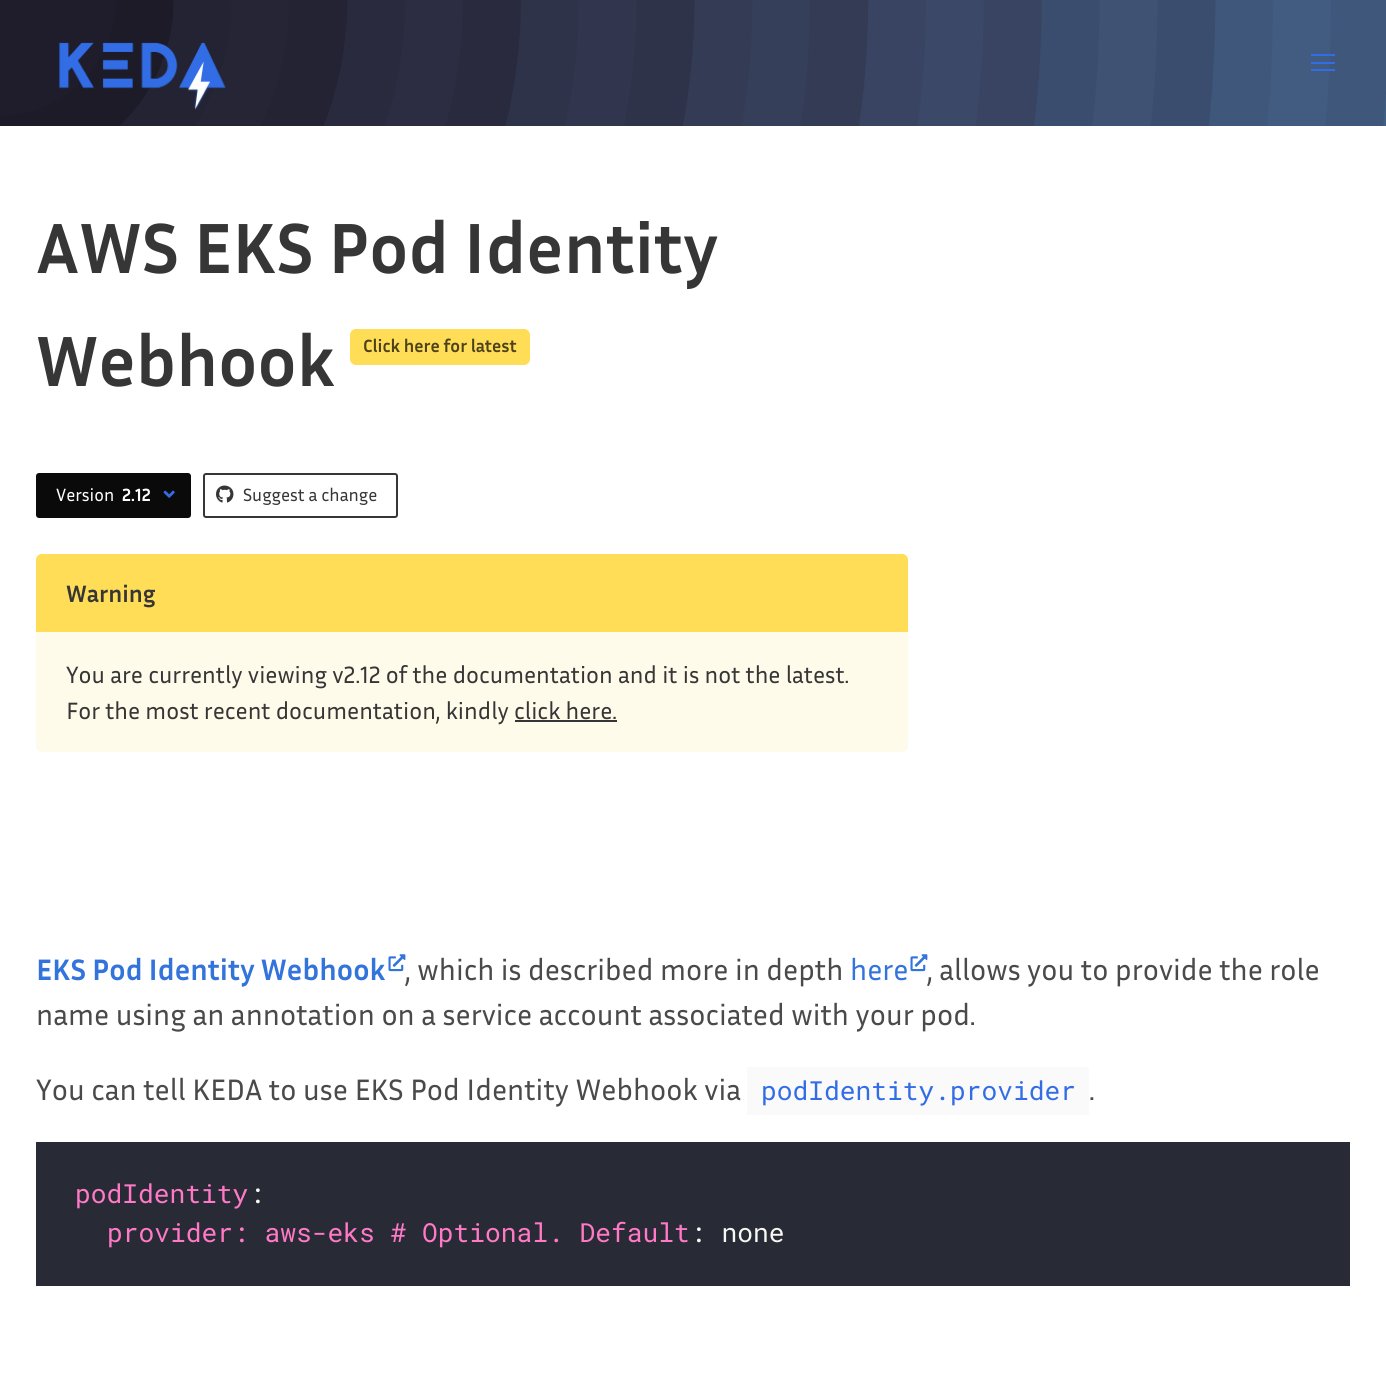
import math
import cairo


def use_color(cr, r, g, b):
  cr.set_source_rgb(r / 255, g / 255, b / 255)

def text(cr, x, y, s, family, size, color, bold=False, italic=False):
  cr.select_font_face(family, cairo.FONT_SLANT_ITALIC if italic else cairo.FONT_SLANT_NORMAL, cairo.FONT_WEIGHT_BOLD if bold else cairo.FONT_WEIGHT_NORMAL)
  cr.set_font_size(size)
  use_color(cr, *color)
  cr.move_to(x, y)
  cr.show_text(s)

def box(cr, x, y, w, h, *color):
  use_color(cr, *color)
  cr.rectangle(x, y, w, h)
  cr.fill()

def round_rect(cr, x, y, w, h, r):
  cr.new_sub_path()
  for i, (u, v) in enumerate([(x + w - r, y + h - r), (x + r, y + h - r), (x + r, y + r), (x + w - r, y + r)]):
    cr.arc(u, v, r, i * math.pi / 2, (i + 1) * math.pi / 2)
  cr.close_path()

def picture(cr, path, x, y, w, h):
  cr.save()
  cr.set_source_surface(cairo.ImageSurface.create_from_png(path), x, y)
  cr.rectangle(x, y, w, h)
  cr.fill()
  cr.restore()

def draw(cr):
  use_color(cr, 255, 255, 255)
  cr.paint()
  picture(cr, "img_01.png", 0, 0, 1386, 126)
  picture(cr, "img_02.png", 59, 42, 167, 68)
  box(cr, 1311, 54, 24, 2, 50, 109, 230)
  box(cr, 1311, 62, 24, 2, 50, 109, 230)
  box(cr, 1311, 69, 24, 2, 50, 109, 230)
  use_color(cr, 255, 221, 87)
  round_rect(cr, 350, 329, 180, 36, 6)
  cr.fill()
  use_color(cr, 10, 10, 10)
  round_rect(cr, 36, 473, 155, 45, 3)
  cr.fill()
  picture(cr, "img_03.png", 163, 490, 12, 8)
  round_rect(cr, 204, 474, 193, 43, 2)
  use_color(cr, 54, 54, 54)
  cr.stroke()
  picture(cr, "img_04.png", 216, 485, 18, 18)
  use_color(cr, 255, 251, 235)
  round_rect(cr, 36, 554, 872, 198, 6)
  cr.fill()
  use_color(cr, 255, 221, 87)
  cr.new_path()
  cr.move_to(42, 554)
  cr.line_to(902, 554)
  cr.curve_to(905.5, 554, 908, 556.5, 908, 560)
  cr.line_to(908, 632)
  cr.line_to(36, 632)
  cr.line_to(36, 560)
  cr.curve_to(36, 556.5, 38.5, 554, 42, 554)
  cr.close_path()
  cr.fill()
  box(cr, 515, 720, 102, 2, 54, 54, 54)
  picture(cr, "img_05.png", 388, 954, 18, 18)
  picture(cr, "img_05.png", 910, 954, 18, 18)
  box(cr, 747, 1067, 342, 48, 250, 250, 250)
  box(cr, 36, 1142, 1314, 144, 40, 42, 54)
  text(cr, 36, 273, "AWS EKS Pod Identity", "Inria Sans", 72, (54, 54, 54), bold=True)
  text(cr, 36, 386, "Webhook", "Inria Sans", 72, (54, 54, 54), bold=True)
  text(cr, 363, 352, "Click here for latest", "Inria Sans", 18, (77, 66, 26), bold=True)
  text(cr, 56, 501, "Version", "Inria Sans", 18, (255, 255, 255))
  text(cr, 122, 501, "2.12", "Inria Sans", 18, (255, 255, 255), bold=True)
  text(cr, 243, 501, "Suggest a change", "Inria Sans", 18, (54, 54, 54))
  text(cr, 66, 602, "Warning", "Inria Sans", 24, (54, 54, 54), bold=True)
  text(cr, 66, 683, "You are currently viewing v2.12 of the documentation and it is not the latest.", "Inria Sans", 24, (54, 54, 54))
  text(cr, 66, 719, "For the most recent documentation, kindly click here.", "Inria Sans", 24, (54, 54, 54))
  text(cr, 36, 980, "EKS Pod Identity Webhook", "Inria Sans", 30, (50, 115, 220), bold=True)
  text(cr, 405, 980, ", which is described more in depth", "Inria Sans", 30, (74, 74, 74))
  text(cr, 850, 980, "here", "Inria Sans", 30, (50, 115, 220))
  text(cr, 927, 980, ", allows you to provide the role", "Inria Sans", 30, (74, 74, 74))
  text(cr, 36, 1025, "name using an annotation on a service account associated with your pod.", "Inria Sans", 30, (74, 74, 74))
  text(cr, 36, 1100, "You can tell KEDA to use EKS Pod Identity Webhook via", "Inria Sans", 30, (74, 74, 74))
  text(cr, 761, 1100, "podIdentity.provider", "Roboto Mono", 26.25, (50, 109, 230))
  text(cr, 1089, 1100, ".", "Inria Sans", 30, (74, 74, 74))
  text(cr, 75, 1203, "podIdentity", "Roboto Mono", 26.25, (255, 121, 198))
  text(cr, 249, 1203, ":", "Roboto Mono", 26.25, (248, 248, 242))
  text(cr, 107, 1242, "provider: aws-eks # Optional. Default", "Roboto Mono", 26.25, (255, 121, 198))
  text(cr, 690, 1242, ": none", "Roboto Mono", 26.25, (248, 248, 242))


surface = cairo.ImageSurface(cairo.FORMAT_RGB24, 1386, 1388)
cr = cairo.Context(surface)
options = cairo.FontOptions()
options.set_hint_metrics(cairo.HINT_METRICS_OFF)
options.set_hint_style(cairo.HINT_STYLE_NONE)
cr.set_font_options(options)
cr.set_miter_limit(4)
draw(cr)
surface.write_to_png("out.png")
